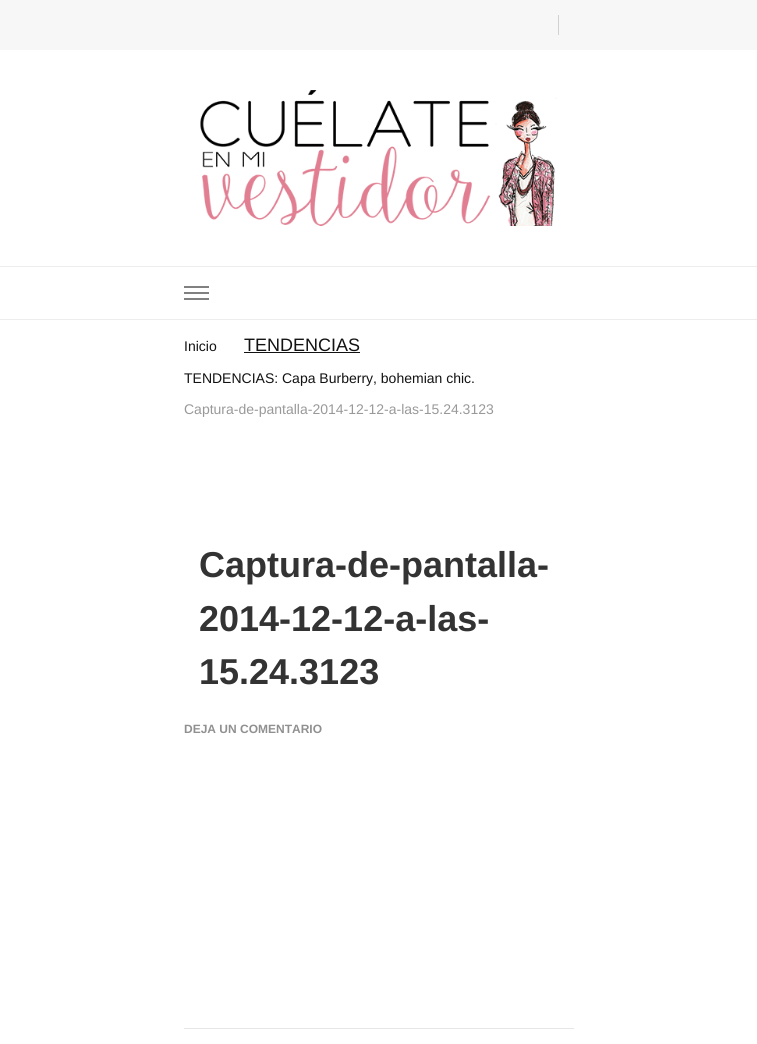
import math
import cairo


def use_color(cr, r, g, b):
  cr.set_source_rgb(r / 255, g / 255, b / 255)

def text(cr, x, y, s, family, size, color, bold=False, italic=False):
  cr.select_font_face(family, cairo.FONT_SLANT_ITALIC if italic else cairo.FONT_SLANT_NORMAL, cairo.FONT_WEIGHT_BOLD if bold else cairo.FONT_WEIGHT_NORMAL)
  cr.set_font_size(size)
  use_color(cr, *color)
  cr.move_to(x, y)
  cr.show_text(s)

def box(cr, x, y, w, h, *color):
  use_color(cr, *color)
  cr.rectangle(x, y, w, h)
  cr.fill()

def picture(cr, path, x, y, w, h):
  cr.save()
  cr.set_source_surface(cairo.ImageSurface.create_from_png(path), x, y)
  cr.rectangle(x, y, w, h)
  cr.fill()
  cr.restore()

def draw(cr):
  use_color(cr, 255, 255, 255)
  cr.paint()
  box(cr, 0, 0, 757, 50, 247, 247, 247)
  box(cr, 558, 15, 1, 20, 210, 210, 210)
  picture(cr, "img_01.png", 200, 90, 357, 136)
  box(cr, 0, 266, 757, 1, 237, 237, 237)
  box(cr, 0, 319, 757, 1, 237, 237, 237)
  box(cr, 184, 286, 25, 2, 128, 128, 128)
  box(cr, 184, 292, 25, 2, 128, 128, 128)
  box(cr, 184, 298, 25, 2, 128, 128, 128)
  box(cr, 244, 352, 116, 1, 18, 18, 18)
  box(cr, 184, 1028, 390, 1, 230, 230, 230)
  text(cr, 184, 351, "Inicio", "Liberation Sans", 14, (18, 18, 18))
  text(cr, 244, 351, "TENDENCIAS", "Liberation Sans", 18, (18, 18, 18))
  text(cr, 184, 383, "TENDENCIAS: Capa Burberry, bohemian chic.", "Liberation Sans", 14, (18, 18, 18))
  text(cr, 184, 414, "Captura-de-pantalla-2014-12-12-a-las-15.24.3123", "Liberation Sans", 14, (153, 153, 153))
  text(cr, 199, 577, "Captura-de-pantalla-", "Liberation Sans", 36, (51, 51, 51), bold=True)
  text(cr, 199, 631, "2014-12-12-a-las-", "Liberation Sans", 36, (51, 51, 51), bold=True)
  text(cr, 199, 684, "15.24.3123", "Liberation Sans", 36, (51, 51, 51), bold=True)
  text(cr, 184, 733, "DEJA UN COMENTARIO", "Liberation Sans", 12, (144, 144, 144), bold=True)


surface = cairo.ImageSurface(cairo.FORMAT_RGB24, 757, 1044)
cr = cairo.Context(surface)
options = cairo.FontOptions()
options.set_hint_metrics(cairo.HINT_METRICS_OFF)
options.set_hint_style(cairo.HINT_STYLE_NONE)
cr.set_font_options(options)
cr.set_miter_limit(4)
draw(cr)
surface.write_to_png("out.png")
